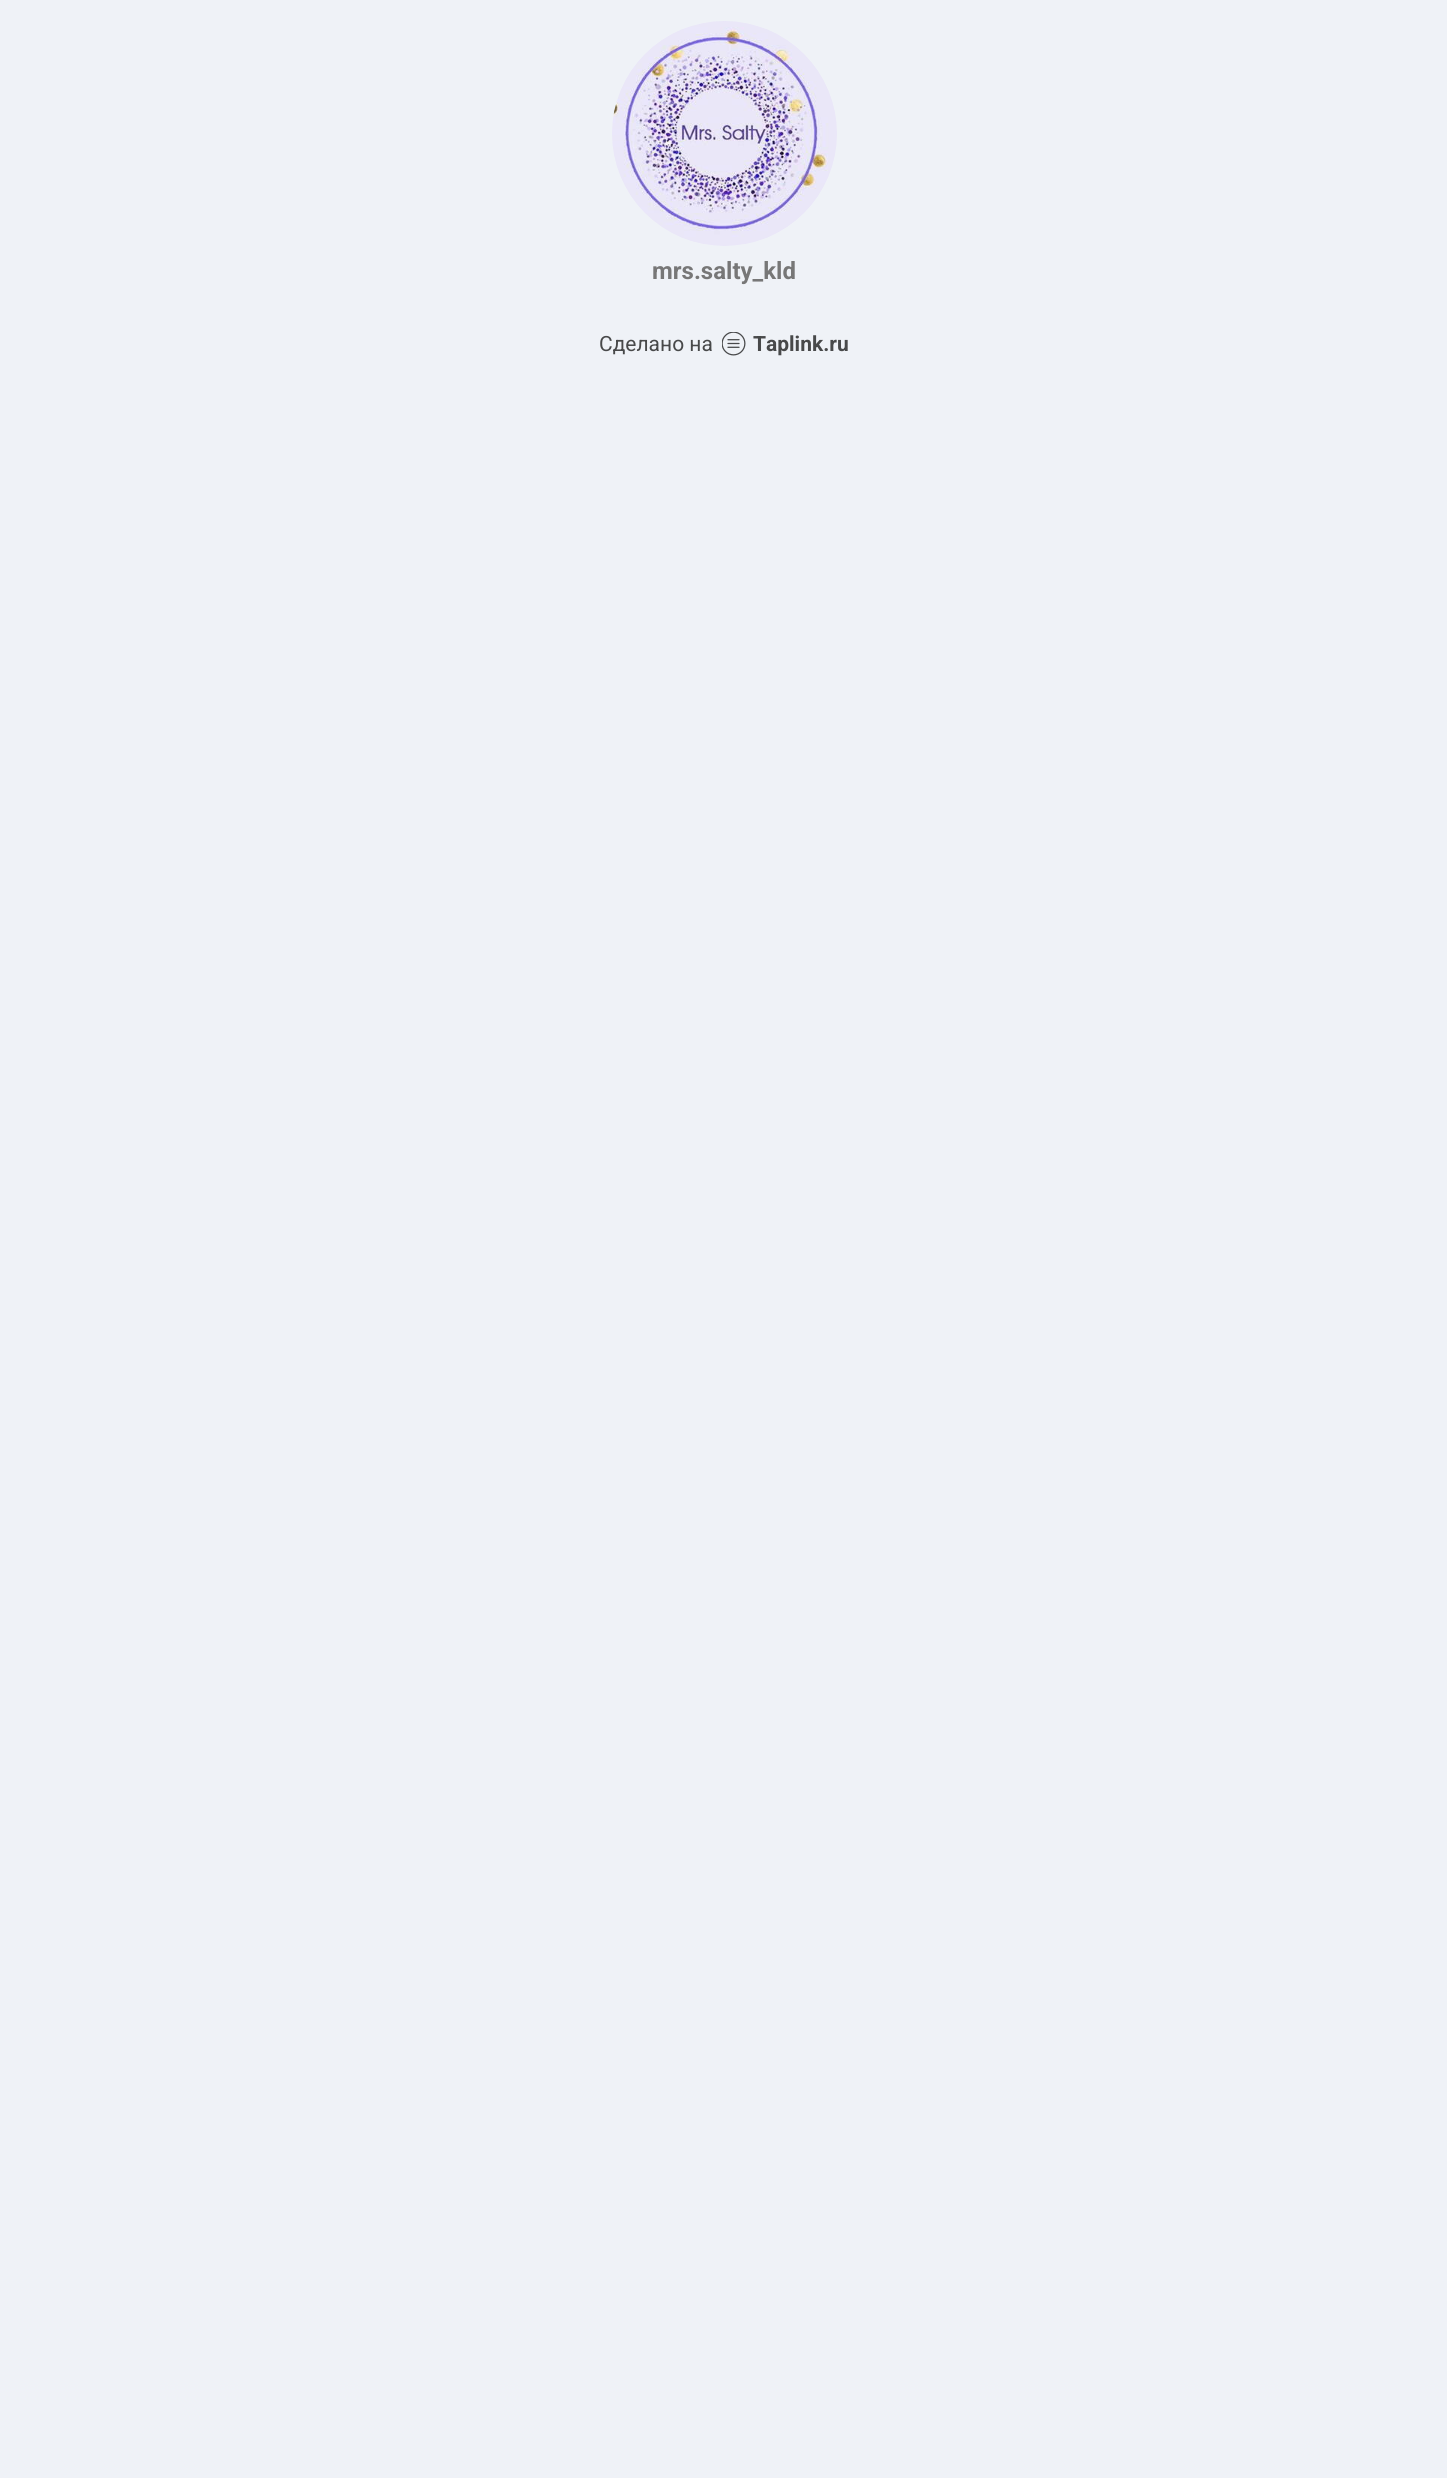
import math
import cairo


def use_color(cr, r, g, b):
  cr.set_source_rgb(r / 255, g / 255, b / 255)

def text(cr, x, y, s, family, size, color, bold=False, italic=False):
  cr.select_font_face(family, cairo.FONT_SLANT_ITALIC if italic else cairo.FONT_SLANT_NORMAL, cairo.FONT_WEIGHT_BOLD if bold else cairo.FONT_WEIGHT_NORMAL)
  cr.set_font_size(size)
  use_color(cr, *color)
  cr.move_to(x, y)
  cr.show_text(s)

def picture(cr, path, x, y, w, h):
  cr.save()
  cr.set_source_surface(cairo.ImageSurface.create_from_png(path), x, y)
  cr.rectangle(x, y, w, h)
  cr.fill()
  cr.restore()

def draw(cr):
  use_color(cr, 239, 242, 247)
  cr.paint()
  picture(cr, "img_01.png", 612, 21, 225, 225)
  picture(cr, "img_02.png", 722, 332, 24, 24)
  text(cr, 652, 279, "mrs.salty_kld", "Roboto", 24, (119, 119, 119), bold=True)
  text(cr, 599, 351, "Сделано на", "Roboto", 21, (72, 73, 74))
  text(cr, 753, 351, "Taplink.ru", "Roboto", 21, (72, 73, 74), bold=True)


surface = cairo.ImageSurface(cairo.FORMAT_RGB24, 1447, 2478)
cr = cairo.Context(surface)
options = cairo.FontOptions()
options.set_hint_metrics(cairo.HINT_METRICS_OFF)
options.set_hint_style(cairo.HINT_STYLE_NONE)
cr.set_font_options(options)
cr.set_miter_limit(4)
draw(cr)
surface.write_to_png("out.png")
